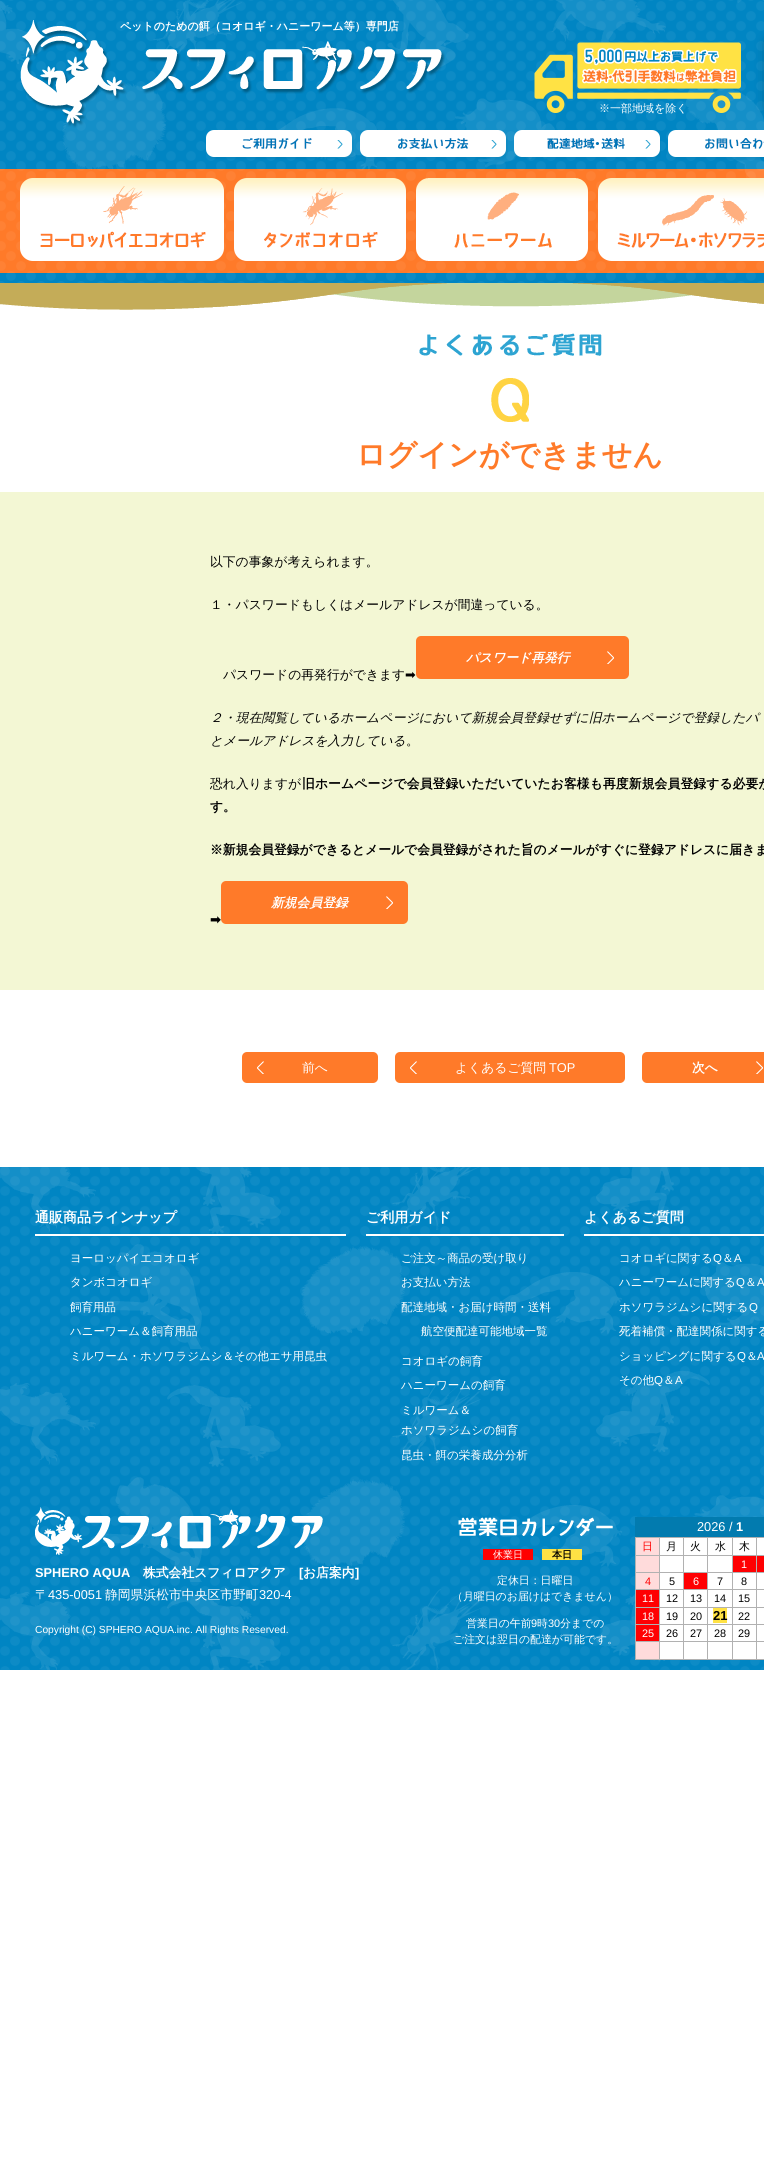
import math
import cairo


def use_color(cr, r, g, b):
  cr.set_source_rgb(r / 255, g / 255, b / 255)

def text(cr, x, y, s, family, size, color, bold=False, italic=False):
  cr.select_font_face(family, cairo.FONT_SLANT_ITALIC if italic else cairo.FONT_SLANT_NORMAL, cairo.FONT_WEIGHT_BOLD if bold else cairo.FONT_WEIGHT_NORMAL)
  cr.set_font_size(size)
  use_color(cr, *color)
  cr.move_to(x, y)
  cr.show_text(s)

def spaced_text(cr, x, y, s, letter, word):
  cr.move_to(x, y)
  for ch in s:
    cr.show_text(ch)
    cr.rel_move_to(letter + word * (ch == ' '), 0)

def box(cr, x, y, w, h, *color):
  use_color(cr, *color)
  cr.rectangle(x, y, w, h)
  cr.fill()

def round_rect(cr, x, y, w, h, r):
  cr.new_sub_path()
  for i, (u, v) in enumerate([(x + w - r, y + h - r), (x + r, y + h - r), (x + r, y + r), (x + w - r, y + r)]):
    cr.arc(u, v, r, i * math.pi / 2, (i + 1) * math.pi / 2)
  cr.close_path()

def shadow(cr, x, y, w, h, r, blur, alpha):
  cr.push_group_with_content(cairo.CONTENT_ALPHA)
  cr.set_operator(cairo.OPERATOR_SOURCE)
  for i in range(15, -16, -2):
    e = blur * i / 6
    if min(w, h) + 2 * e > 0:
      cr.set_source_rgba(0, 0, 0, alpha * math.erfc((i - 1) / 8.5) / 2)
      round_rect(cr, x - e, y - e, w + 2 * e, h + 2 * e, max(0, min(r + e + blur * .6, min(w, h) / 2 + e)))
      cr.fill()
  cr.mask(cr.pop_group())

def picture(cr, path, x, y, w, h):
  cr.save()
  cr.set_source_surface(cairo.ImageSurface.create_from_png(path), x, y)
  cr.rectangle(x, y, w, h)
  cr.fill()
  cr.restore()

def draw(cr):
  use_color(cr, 255, 255, 255)
  cr.paint()
  picture(cr, "img_01.png", 0, 0, 764, 283)
  picture(cr, "img_03.png", 534, 42, 207, 71)
  use_color(cr, 0, 62, 85)
  shadow(cr, 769, 39, 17, 72, 4, 6, 1)
  picture(cr, "img_04.png", 206, 130, 148, 29)
  picture(cr, "img_05.png", 360, 130, 148, 30)
  picture(cr, "img_06.png", 514, 130, 147, 30)
  picture(cr, "img_07.png", 668, 130, 96, 30)
  picture(cr, "img_08.png", 20, 178, 204, 83)
  picture(cr, "img_09.png", 234, 178, 172, 83)
  picture(cr, "img_10.png", 416, 178, 172, 83)
  picture(cr, "img_11.png", 598, 178, 166, 83)
  picture(cr, "img_12.png", 0, 283, 764, 27)
  picture(cr, "img_13.png", 419, 333, 183, 23)
  picture(cr, "img_14.png", 491, 378, 38, 44)
  box(cr, 0, 492, 764, 498, 243, 247, 212)
  use_color(cr, 255, 122, 41)
  round_rect(cr, 416, 636, 213, 43, 5)
  cr.fill()
  picture(cr, "img_15.png", 607, 651, 7, 13)
  round_rect(cr, 221, 881, 187, 43, 5)
  cr.fill()
  picture(cr, "img_15.png", 386, 896, 7, 13)
  round_rect(cr, 242, 1052, 136, 31, 5)
  cr.fill()
  picture(cr, "img_16.png", 257, 1061, 7, 13)
  round_rect(cr, 395, 1052, 230, 31, 5)
  cr.fill()
  picture(cr, "img_16.png", 410, 1061, 7, 13)
  round_rect(cr, 642, 1052, 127, 31, 5)
  cr.fill()
  picture(cr, "img_15.png", 756, 1061, 7, 13)
  picture(cr, "img_17.png", 0, 1167, 764, 503)
  box(cr, 35, 1234, 311, 2, 255, 255, 255)
  box(cr, 366, 1234, 198, 2, 255, 255, 255)
  box(cr, 584, 1234, 180, 2, 255, 255, 255)
  picture(cr, "img_18.png", 35, 1507, 288, 48)
  picture(cr, "img_19.png", 458, 1517, 155, 19)
  box(cr, 483, 1549, 50, 11, 255, 0, 0)
  box(cr, 542, 1549, 40, 11, 255, 226, 68)
  box(cr, 635, 1517, 129, 20, 2, 123, 175)
  box(cr, 636, 1538, 23, 17, 255, 219, 219)
  box(cr, 756, 1537, 8, 1, 177, 177, 177)
  box(cr, 757, 1555, 7, 17, 255, 0, 2)
  box(cr, 756, 1555, 8, 1, 177, 177, 177)
  box(cr, 757, 1572, 7, 87, 255, 255, 255)
  box(cr, 756, 1572, 8, 1, 177, 177, 177)
  box(cr, 756, 1589, 8, 1, 177, 177, 177)
  box(cr, 756, 1607, 8, 1, 177, 177, 177)
  box(cr, 756, 1624, 8, 1, 177, 177, 177)
  box(cr, 756, 1641, 8, 1, 177, 177, 177)
  box(cr, 756, 1659, 8, 1, 177, 177, 177)
  box(cr, 756, 1641, 1, 19, 177, 177, 177)
  box(cr, 732, 1641, 25, 1, 177, 177, 177)
  box(cr, 756, 1624, 1, 18, 177, 177, 177)
  box(cr, 732, 1624, 25, 1, 177, 177, 177)
  box(cr, 756, 1607, 1, 18, 177, 177, 177)
  box(cr, 732, 1607, 25, 1, 177, 177, 177)
  box(cr, 756, 1589, 1, 19, 177, 177, 177)
  box(cr, 732, 1589, 25, 1, 177, 177, 177)
  box(cr, 756, 1572, 1, 18, 177, 177, 177)
  box(cr, 732, 1572, 25, 1, 177, 177, 177)
  box(cr, 756, 1555, 1, 18, 177, 177, 177)
  box(cr, 732, 1555, 25, 1, 177, 177, 177)
  box(cr, 756, 1537, 1, 19, 177, 177, 177)
  box(cr, 732, 1537, 25, 1, 177, 177, 177)
  box(cr, 732, 1659, 25, 1, 177, 177, 177)
  box(cr, 732, 1641, 1, 19, 177, 177, 177)
  box(cr, 707, 1641, 26, 1, 177, 177, 177)
  box(cr, 732, 1624, 1, 18, 177, 177, 177)
  box(cr, 707, 1624, 26, 1, 177, 177, 177)
  box(cr, 732, 1607, 1, 18, 177, 177, 177)
  box(cr, 707, 1607, 26, 1, 177, 177, 177)
  box(cr, 732, 1589, 1, 19, 177, 177, 177)
  box(cr, 707, 1589, 26, 1, 177, 177, 177)
  box(cr, 732, 1572, 1, 18, 177, 177, 177)
  box(cr, 707, 1572, 26, 1, 177, 177, 177)
  box(cr, 732, 1555, 1, 18, 177, 177, 177)
  box(cr, 707, 1555, 26, 1, 177, 177, 177)
  box(cr, 732, 1537, 1, 19, 177, 177, 177)
  box(cr, 707, 1537, 26, 1, 177, 177, 177)
  box(cr, 707, 1659, 26, 1, 177, 177, 177)
  box(cr, 707, 1641, 1, 19, 177, 177, 177)
  box(cr, 683, 1641, 25, 1, 177, 177, 177)
  box(cr, 707, 1624, 1, 18, 177, 177, 177)
  box(cr, 683, 1624, 25, 1, 177, 177, 177)
  box(cr, 707, 1607, 1, 18, 177, 177, 177)
  box(cr, 683, 1607, 25, 1, 177, 177, 177)
  box(cr, 707, 1589, 1, 19, 177, 177, 177)
  box(cr, 683, 1589, 25, 1, 177, 177, 177)
  box(cr, 707, 1572, 1, 18, 177, 177, 177)
  box(cr, 683, 1572, 25, 1, 177, 177, 177)
  box(cr, 707, 1555, 1, 18, 177, 177, 177)
  box(cr, 683, 1555, 25, 1, 177, 177, 177)
  box(cr, 707, 1537, 1, 19, 177, 177, 177)
  box(cr, 683, 1537, 25, 1, 177, 177, 177)
  box(cr, 683, 1659, 25, 1, 177, 177, 177)
  box(cr, 683, 1641, 1, 19, 177, 177, 177)
  box(cr, 659, 1641, 25, 1, 177, 177, 177)
  box(cr, 683, 1624, 1, 18, 177, 177, 177)
  box(cr, 659, 1624, 25, 1, 177, 177, 177)
  box(cr, 683, 1607, 1, 18, 177, 177, 177)
  box(cr, 659, 1607, 25, 1, 177, 177, 177)
  box(cr, 683, 1589, 1, 19, 177, 177, 177)
  box(cr, 659, 1589, 25, 1, 177, 177, 177)
  box(cr, 683, 1572, 1, 18, 177, 177, 177)
  box(cr, 659, 1572, 25, 1, 177, 177, 177)
  box(cr, 683, 1555, 1, 18, 177, 177, 177)
  box(cr, 659, 1555, 25, 1, 177, 177, 177)
  box(cr, 683, 1537, 1, 19, 177, 177, 177)
  box(cr, 659, 1537, 25, 1, 177, 177, 177)
  box(cr, 659, 1659, 25, 1, 177, 177, 177)
  box(cr, 659, 1641, 1, 19, 177, 177, 177)
  box(cr, 635, 1641, 25, 1, 177, 177, 177)
  box(cr, 659, 1624, 1, 18, 177, 177, 177)
  box(cr, 635, 1624, 25, 1, 177, 177, 177)
  box(cr, 659, 1607, 1, 18, 177, 177, 177)
  box(cr, 635, 1607, 25, 1, 177, 177, 177)
  box(cr, 659, 1589, 1, 19, 177, 177, 177)
  box(cr, 635, 1589, 25, 1, 177, 177, 177)
  box(cr, 659, 1572, 1, 18, 177, 177, 177)
  box(cr, 635, 1572, 25, 1, 177, 177, 177)
  box(cr, 659, 1555, 1, 18, 177, 177, 177)
  box(cr, 635, 1555, 25, 1, 177, 177, 177)
  box(cr, 659, 1537, 1, 19, 177, 177, 177)
  box(cr, 635, 1537, 25, 1, 177, 177, 177)
  box(cr, 635, 1659, 25, 1, 177, 177, 177)
  box(cr, 635, 1641, 1, 19, 177, 177, 177)
  box(cr, 635, 1624, 1, 18, 177, 177, 177)
  box(cr, 635, 1607, 1, 18, 177, 177, 177)
  box(cr, 635, 1589, 1, 19, 177, 177, 177)
  box(cr, 635, 1572, 1, 18, 177, 177, 177)
  box(cr, 635, 1555, 1, 18, 177, 177, 177)
  box(cr, 635, 1537, 1, 19, 177, 177, 177)
  box(cr, 660, 1538, 23, 17, 255, 255, 255)
  box(cr, 684, 1538, 23, 17, 255, 255, 255)
  box(cr, 708, 1538, 24, 17, 255, 255, 255)
  box(cr, 733, 1538, 23, 17, 255, 255, 255)
  box(cr, 757, 1538, 7, 17, 255, 255, 255)
  box(cr, 636, 1556, 23, 16, 255, 219, 219)
  box(cr, 660, 1556, 23, 16, 255, 255, 255)
  box(cr, 684, 1556, 23, 16, 255, 255, 255)
  box(cr, 708, 1556, 24, 16, 255, 255, 255)
  box(cr, 733, 1556, 23, 16, 255, 0, 2)
  box(cr, 636, 1573, 23, 16, 255, 219, 219)
  box(cr, 660, 1573, 23, 16, 255, 255, 255)
  box(cr, 684, 1573, 23, 16, 255, 0, 2)
  box(cr, 708, 1573, 24, 16, 255, 255, 255)
  box(cr, 733, 1573, 23, 16, 255, 255, 255)
  box(cr, 636, 1590, 23, 17, 255, 0, 2)
  box(cr, 660, 1590, 23, 17, 255, 255, 255)
  box(cr, 684, 1590, 23, 17, 255, 255, 255)
  box(cr, 708, 1590, 24, 17, 255, 255, 255)
  box(cr, 733, 1590, 23, 17, 255, 255, 255)
  box(cr, 636, 1608, 23, 16, 255, 0, 2)
  box(cr, 660, 1608, 23, 16, 255, 255, 255)
  box(cr, 684, 1608, 23, 16, 255, 255, 255)
  box(cr, 708, 1608, 24, 16, 255, 255, 255)
  box(cr, 713, 1608, 14, 15, 255, 226, 68)
  box(cr, 733, 1608, 23, 16, 255, 255, 255)
  box(cr, 636, 1625, 23, 16, 255, 0, 2)
  box(cr, 660, 1625, 23, 16, 255, 255, 255)
  box(cr, 684, 1625, 23, 16, 255, 255, 255)
  box(cr, 708, 1625, 24, 16, 255, 255, 255)
  box(cr, 733, 1625, 23, 16, 255, 255, 255)
  box(cr, 636, 1642, 23, 17, 255, 219, 219)
  box(cr, 660, 1642, 23, 17, 255, 255, 255)
  box(cr, 684, 1642, 23, 17, 255, 255, 255)
  box(cr, 708, 1642, 24, 17, 255, 255, 255)
  box(cr, 733, 1642, 23, 17, 255, 255, 255)
  text(cr, 120, 30, "ペットのための餌（コオロギ・ハニーワーム等）専門店", "WenQuanYi Zen Hei", 11, (255, 255, 255), bold=True)
  picture(cr, "img_02.png", 20, 20, 425, 108)
  text(cr, 599, 112, "※一部地域を除く", "WenQuanYi Zen Hei Medium", 11, (255, 255, 255))
  text(cr, 356, 465, "ログインができません", "WenQuanYi Zen Hei", 30, (255, 122, 41), bold=True)
  text(cr, 210, 566, "以下の事象が考えられます。", "WenQuanYi Zen Hei Medium", 12.8, (0, 0, 0))
  text(cr, 210, 609, "１・パスワードもしくはメールアドレスが間違っている。", "WenQuanYi Zen Hei Medium", 12.8, (0, 0, 0))
  text(cr, 466, 662, "パスワード再発行", "WenQuanYi Zen Hei", 12.8, (255, 255, 255), bold=True, italic=True)
  text(cr, 223, 679, "パスワードの再発行ができます", "WenQuanYi Zen Hei Medium", 12.8, (0, 0, 0))
  text(cr, 405, 679, "➡", "DejaVu Sans", 12.8, (0, 0, 0))
  cr.select_font_face("WenQuanYi Zen Hei Medium", cairo.FONT_SLANT_ITALIC)
  spaced_text(cr, 210, 722, "２・現在閲覧しているホームページにおいて新規会員登録せずに旧ホームページで登録したパ", 0.1, 0)
  text(cr, 210, 745, "とメールアドレスを入力している", "WenQuanYi Zen Hei Medium", 12.8, (0, 0, 0), italic=True)
  text(cr, 406, 745, "。", "WenQuanYi Zen Hei Medium", 12.8, (0, 0, 0))
  text(cr, 210, 788, "恐れ入りますが", "WenQuanYi Zen Hei Medium", 12.8, (0, 0, 0))
  cr.select_font_face("WenQuanYi Zen Hei", cairo.FONT_SLANT_NORMAL, cairo.FONT_WEIGHT_BOLD)
  spaced_text(cr, 302, 788, "旧ホームページで会員登録いただいていたお客様も再度新規会員登録する必要が", 0.1, 0)
  text(cr, 210, 811, "す。", "WenQuanYi Zen Hei", 12.8, (0, 0, 0), bold=True)
  text(cr, 210, 854, "※新規会員登録ができるとメールで会員登録がされた旨のメールがすぐに登録アドレスに届きま", "WenQuanYi Zen Hei", 12.8, (0, 0, 0), bold=True)
  text(cr, 271, 907, "新規会員登録", "WenQuanYi Zen Hei", 12.8, (255, 255, 255), bold=True, italic=True)
  text(cr, 210, 924, "➡", "DejaVu Sans", 12.8, (0, 0, 0), bold=True)
  text(cr, 302, 1072, "前へ", "WenQuanYi Zen Hei Medium", 12.8, (255, 255, 255))
  text(cr, 455, 1072, "よくあるご質問", "WenQuanYi Zen Hei Medium", 12.8, (255, 255, 255))
  text(cr, 549, 1072, "TOP", "Liberation Sans", 12.8, (255, 255, 255))
  text(cr, 692, 1072, "次へ", "WenQuanYi Zen Hei", 12.8, (255, 255, 255), bold=True)
  text(cr, 35, 1222, "通販商品ラインナップ", "WenQuanYi Zen Hei", 14, (255, 255, 255), bold=True)
  text(cr, 70, 1262, "ヨーロッパイエコオロギ", "WenQuanYi Zen Hei Medium", 11.5, (255, 255, 255))
  text(cr, 70, 1286, "タンボコオロギ", "WenQuanYi Zen Hei Medium", 11.5, (255, 255, 255))
  text(cr, 70, 1311, "飼育用品", "WenQuanYi Zen Hei Medium", 11.5, (255, 255, 255))
  text(cr, 70, 1335, "ハニーワーム＆飼育用品", "WenQuanYi Zen Hei Medium", 11.5, (255, 255, 255))
  text(cr, 70, 1360, "ミルワーム・ホソワラジムシ＆その他エサ用昆虫", "WenQuanYi Zen Hei Medium", 11.5, (255, 255, 255))
  text(cr, 366, 1222, "ご利用ガイド", "WenQuanYi Zen Hei", 14, (255, 255, 255), bold=True)
  text(cr, 401, 1262, "ご注文～商品の受け取り", "WenQuanYi Zen Hei Medium", 11.5, (255, 255, 255))
  text(cr, 401, 1286, "お支払い方法", "WenQuanYi Zen Hei Medium", 11.5, (255, 255, 255))
  text(cr, 401, 1311, "配達地域・お届け時間・送料", "WenQuanYi Zen Hei Medium", 11.5, (255, 255, 255))
  text(cr, 421, 1335, "航空便配達可能地域一覧", "WenQuanYi Zen Hei Medium", 11.5, (255, 255, 255))
  text(cr, 401, 1365, "コオロギの飼育", "WenQuanYi Zen Hei Medium", 11.5, (255, 255, 255))
  text(cr, 401, 1389, "ハニーワームの飼育", "WenQuanYi Zen Hei Medium", 11.5, (255, 255, 255))
  text(cr, 401, 1414, "ミルワーム＆", "WenQuanYi Zen Hei Medium", 11.5, (255, 255, 255))
  text(cr, 401, 1434, "ホソワラジムシの飼育", "WenQuanYi Zen Hei Medium", 11.5, (255, 255, 255))
  text(cr, 401, 1459, "昆虫・餌の栄養成分分析", "WenQuanYi Zen Hei Medium", 11.5, (255, 255, 255))
  text(cr, 584, 1222, "よくあるご質問", "WenQuanYi Zen Hei", 14, (255, 255, 255), bold=True)
  text(cr, 619, 1262, "コオロギに関する", "WenQuanYi Zen Hei Medium", 11.5, (255, 255, 255))
  text(cr, 713, 1262, "Q", "Liberation Sans", 11.5, (255, 255, 255))
  text(cr, 722, 1262, "＆", "WenQuanYi Zen Hei Medium", 11.5, (255, 255, 255))
  text(cr, 734, 1262, "A", "Liberation Sans", 11.5, (255, 255, 255))
  text(cr, 619, 1286, "ハニーワームに関する", "WenQuanYi Zen Hei Medium", 11.5, (255, 255, 255))
  text(cr, 736, 1286, "Q", "Liberation Sans", 11.5, (255, 255, 255))
  text(cr, 745, 1286, "＆", "WenQuanYi Zen Hei Medium", 11.5, (255, 255, 255))
  text(cr, 757, 1286, "A", "Liberation Sans", 11.5, (255, 255, 255))
  text(cr, 619, 1311, "ホソワラジムシに関する", "WenQuanYi Zen Hei Medium", 11.5, (255, 255, 255))
  text(cr, 749, 1311, "Q", "Liberation Sans", 11.5, (255, 255, 255))
  text(cr, 619, 1335, "死着補償・配達関係に関する", "WenQuanYi Zen Hei Medium", 11.5, (255, 255, 255))
  text(cr, 619, 1360, "ショッピングに関する", "WenQuanYi Zen Hei Medium", 11.5, (255, 255, 255))
  text(cr, 737, 1360, "Q", "Liberation Sans", 11.5, (255, 255, 255))
  text(cr, 746, 1360, "＆", "WenQuanYi Zen Hei Medium", 11.5, (255, 255, 255))
  text(cr, 757, 1360, "A", "Liberation Sans", 11.5, (255, 255, 255))
  text(cr, 619, 1384, "その他", "WenQuanYi Zen Hei Medium", 11.5, (255, 255, 255))
  text(cr, 654, 1384, "Q", "Liberation Sans", 11.5, (255, 255, 255))
  text(cr, 663, 1384, "＆", "WenQuanYi Zen Hei Medium", 11.5, (255, 255, 255))
  text(cr, 675, 1384, "A", "Liberation Sans", 11.5, (255, 255, 255))
  text(cr, 35, 1577, "SPHERO AQUA", "Liberation Sans", 12.8, (255, 255, 255), bold=True)
  text(cr, 143, 1577, "株式会社スフィロアクア", "WenQuanYi Zen Hei", 12.8, (255, 255, 255), bold=True)
  text(cr, 299, 1577, "[", "Liberation Sans", 12.8, (255, 255, 255), bold=True)
  text(cr, 303, 1577, "お店案内", "WenQuanYi Zen Hei", 12.8, (255, 255, 255), bold=True)
  text(cr, 355, 1577, "]", "Liberation Sans", 12.8, (255, 255, 255), bold=True)
  text(cr, 35, 1599, "〒", "WenQuanYi Zen Hei Medium", 12.8, (255, 255, 255))
  text(cr, 48, 1599, "435-0051", "Liberation Sans", 12.8, (255, 255, 255))
  text(cr, 105, 1599, "静岡県浜松市中央区市野町", "WenQuanYi Zen Hei Medium", 12.8, (255, 255, 255))
  text(cr, 259, 1599, "320-4", "Liberation Sans", 12.8, (255, 255, 255))
  text(cr, 35, 1633, "Copyright (C) SPHERO AQUA.inc. All Rights Reserved.", "Liberation Sans", 10.25, (255, 255, 255))
  text(cr, 493, 1558, "休業日", "WenQuanYi Zen Hei Medium", 10, (255, 255, 255))
  text(cr, 552, 1558, "本日", "WenQuanYi Zen Hei", 10, (0, 0, 0), bold=True)
  text(cr, 497, 1584, "定休日：日曜日", "WenQuanYi Zen Hei Medium", 10.9, (255, 255, 255))
  text(cr, 452, 1600, "（月曜日のお届けはできません）", "WenQuanYi Zen Hei Medium", 10.9, (255, 255, 255))
  text(cr, 466, 1627, "営業日の午前", "WenQuanYi Zen Hei Medium", 10.9, (255, 255, 255))
  text(cr, 531, 1627, "9", "Liberation Sans", 10.9, (255, 255, 255))
  text(cr, 537, 1627, "時", "WenQuanYi Zen Hei Medium", 10.9, (255, 255, 255))
  text(cr, 548, 1627, "30", "Liberation Sans", 10.9, (255, 255, 255))
  text(cr, 560, 1627, "分までの", "WenQuanYi Zen Hei Medium", 10.9, (255, 255, 255))
  text(cr, 453, 1643, "ご注文は翌日の配達が可能です。", "WenQuanYi Zen Hei Medium", 10.9, (255, 255, 255))
  text(cr, 697, 1531, "2026 /", "Liberation Sans", 12.8, (255, 255, 255))
  text(cr, 736, 1531, "1", "Liberation Sans", 12.8, (255, 255, 255), bold=True)
  text(cr, 642, 1550, "日", "WenQuanYi Zen Hei Medium", 10.9, (255, 0, 0))
  text(cr, 666, 1550, "月", "WenQuanYi Zen Hei Medium", 10.9, (0, 0, 0))
  text(cr, 690, 1550, "火", "WenQuanYi Zen Hei Medium", 10.9, (0, 0, 0))
  text(cr, 715, 1550, "水", "WenQuanYi Zen Hei Medium", 10.9, (0, 0, 0))
  text(cr, 739, 1550, "木", "WenQuanYi Zen Hei Medium", 10.9, (0, 0, 0))
  text(cr, 741, 1568, "1", "Liberation Sans", 10.9, (255, 255, 255))
  text(cr, 645, 1585, "4", "Liberation Sans", 10.9, (255, 0, 0))
  text(cr, 669, 1585, "5", "Liberation Sans", 10.9, (0, 0, 0))
  text(cr, 693, 1585, "6", "Liberation Sans", 10.9, (255, 255, 255))
  text(cr, 717, 1585, "7", "Liberation Sans", 10.9, (0, 0, 0))
  text(cr, 741, 1585, "8", "Liberation Sans", 10.9, (0, 0, 0))
  text(cr, 642, 1602, "11", "Liberation Sans", 10.9, (255, 255, 255))
  text(cr, 666, 1602, "12", "Liberation Sans", 10.9, (0, 0, 0))
  text(cr, 690, 1602, "13", "Liberation Sans", 10.9, (0, 0, 0))
  text(cr, 714, 1602, "14", "Liberation Sans", 10.9, (0, 0, 0))
  text(cr, 738, 1602, "15", "Liberation Sans", 10.9, (0, 0, 0))
  text(cr, 642, 1620, "18", "Liberation Sans", 10.9, (255, 255, 255))
  text(cr, 666, 1620, "19", "Liberation Sans", 10.9, (0, 0, 0))
  text(cr, 690, 1620, "20", "Liberation Sans", 10.9, (0, 0, 0))
  text(cr, 713, 1620, "21", "Liberation Sans", 13, (0, 0, 0), bold=True)
  text(cr, 738, 1620, "22", "Liberation Sans", 10.9, (0, 0, 0))
  text(cr, 642, 1637, "25", "Liberation Sans", 10.9, (255, 255, 255))
  text(cr, 666, 1637, "26", "Liberation Sans", 10.9, (0, 0, 0))
  text(cr, 690, 1637, "27", "Liberation Sans", 10.9, (0, 0, 0))
  text(cr, 714, 1637, "28", "Liberation Sans", 10.9, (0, 0, 0))
  text(cr, 738, 1637, "29", "Liberation Sans", 10.9, (0, 0, 0))


surface = cairo.ImageSurface(cairo.FORMAT_RGB24, 764, 2171)
cr = cairo.Context(surface)
options = cairo.FontOptions()
options.set_hint_metrics(cairo.HINT_METRICS_OFF)
options.set_hint_style(cairo.HINT_STYLE_NONE)
cr.set_font_options(options)
cr.set_miter_limit(4)
draw(cr)
surface.write_to_png("out.png")
